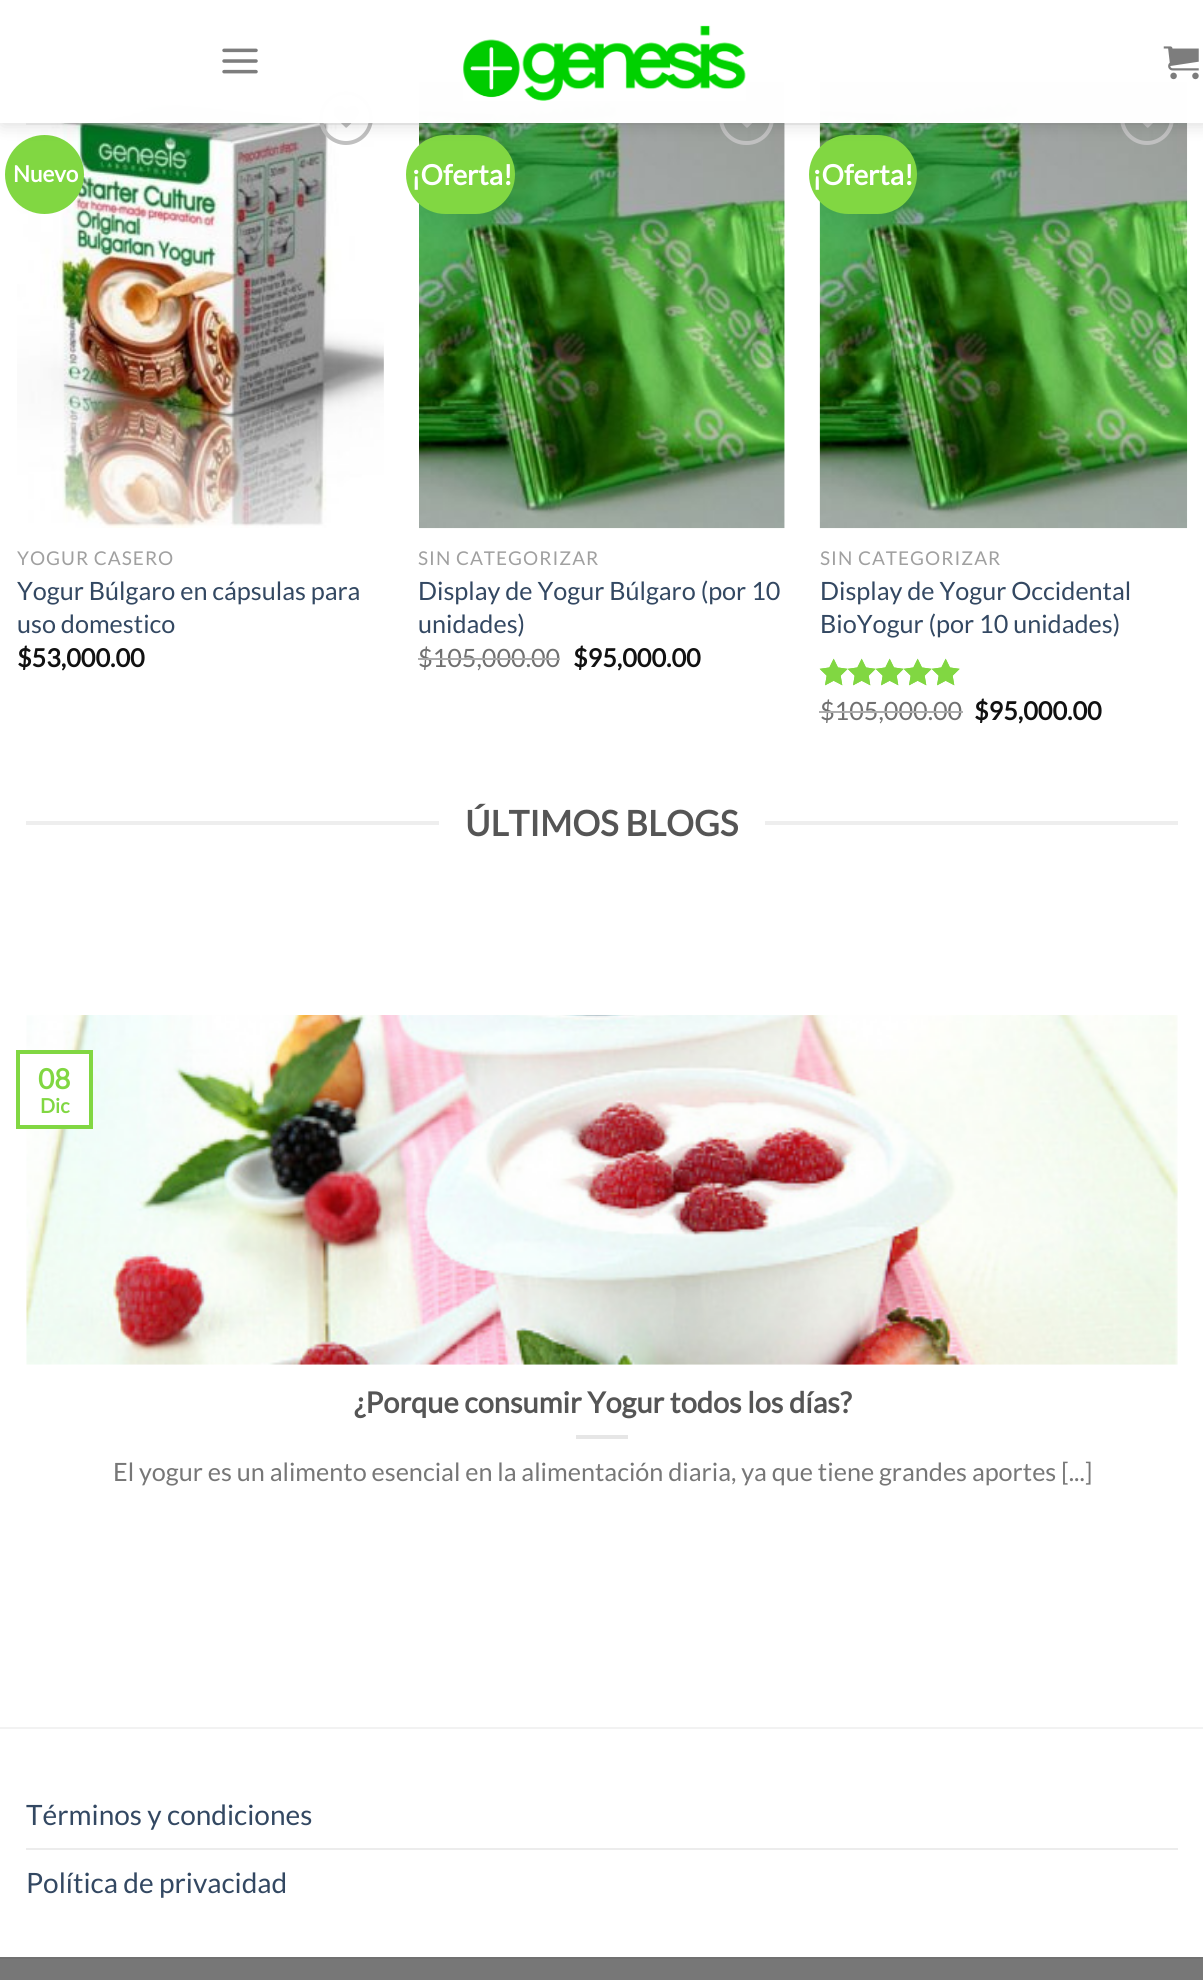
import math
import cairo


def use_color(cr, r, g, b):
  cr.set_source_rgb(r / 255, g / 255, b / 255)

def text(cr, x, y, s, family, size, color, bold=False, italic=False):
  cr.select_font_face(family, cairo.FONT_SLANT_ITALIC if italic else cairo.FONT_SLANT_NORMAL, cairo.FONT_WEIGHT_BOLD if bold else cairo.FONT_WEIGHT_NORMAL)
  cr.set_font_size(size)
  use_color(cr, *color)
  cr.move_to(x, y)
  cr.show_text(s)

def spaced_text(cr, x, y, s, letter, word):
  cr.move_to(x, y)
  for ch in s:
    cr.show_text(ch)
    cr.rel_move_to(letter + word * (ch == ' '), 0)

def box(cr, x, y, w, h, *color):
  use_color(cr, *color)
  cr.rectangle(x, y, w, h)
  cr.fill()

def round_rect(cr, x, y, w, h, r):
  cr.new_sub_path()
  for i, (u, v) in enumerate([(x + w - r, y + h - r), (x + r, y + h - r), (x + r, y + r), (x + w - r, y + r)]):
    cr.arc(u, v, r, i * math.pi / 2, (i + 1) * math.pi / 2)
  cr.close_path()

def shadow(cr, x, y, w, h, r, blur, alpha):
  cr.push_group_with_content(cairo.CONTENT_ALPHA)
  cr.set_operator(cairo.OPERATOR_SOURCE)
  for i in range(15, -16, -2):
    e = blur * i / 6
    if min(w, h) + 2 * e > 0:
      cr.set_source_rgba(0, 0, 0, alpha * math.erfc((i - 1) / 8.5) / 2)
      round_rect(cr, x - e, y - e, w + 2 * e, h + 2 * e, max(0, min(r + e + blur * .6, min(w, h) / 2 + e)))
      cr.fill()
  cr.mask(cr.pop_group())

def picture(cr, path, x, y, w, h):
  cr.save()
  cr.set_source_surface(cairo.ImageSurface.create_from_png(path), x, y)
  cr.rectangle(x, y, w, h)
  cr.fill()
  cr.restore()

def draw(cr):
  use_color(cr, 255, 255, 255)
  cr.paint()
  picture(cr, "img_05.png", 17, 97, 367, 431)
  use_color(cr, 129, 215, 66)
  cr.arc(44.5, 174.5, 39.5, 0, 2 * math.pi)
  cr.fill()
  cr.arc(346, 118, 25, 0, 2 * math.pi)
  use_color(cr, 192, 192, 192)
  cr.set_line_width(4)
  cr.stroke()
  picture(cr, "img_04.png", 333, 105, 27, 23)
  picture(cr, "img_06.png", 419, 82, 366, 447)
  use_color(cr, 129, 215, 66)
  round_rect(cr, 406, 135, 109, 79, 39.5)
  cr.fill()
  round_rect(cr, 721, 93, 51, 50, 25)
  use_color(cr, 192, 192, 192)
  cr.stroke()
  picture(cr, "img_07.png", 734, 105, 26, 23)
  picture(cr, "img_08.png", 819, 82, 369, 447)
  use_color(cr, 129, 215, 66)
  round_rect(cr, 809, 135, 108, 79, 39.5)
  cr.fill()
  cr.arc(1147, 118, 25, 0, 2 * math.pi)
  use_color(cr, 192, 192, 192)
  cr.stroke()
  picture(cr, "img_09.png", 1134, 105, 27, 23)
  cr.save()
  cr.set_fill_rule(cairo.FILL_RULE_EVEN_ODD)
  cr.new_path()
  cr.move_to(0, 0)
  cr.line_to(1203, 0)
  cr.line_to(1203, 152)
  cr.line_to(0, 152)
  cr.close_path()
  cr.move_to(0, 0)
  cr.line_to(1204, 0)
  cr.line_to(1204, 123)
  cr.line_to(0, 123)
  cr.close_path()
  cr.clip()
  use_color(cr, 0, 0, 0)
  shadow(cr, 2, 2, 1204, 122, 0, 9, 0.15)
  cr.restore()
  cr.set_source_rgba(1, 1, 1, 0.9)
  cr.rectangle(0, 82, 1203, 41)
  cr.fill()
  picture(cr, "img_01.png", 222, 48, 36, 26)
  cr.rectangle(63, 82, 1124, 41)
  cr.fill()
  picture(cr, "img_02.png", 463, 25, 283, 76)
  picture(cr, "img_03.png", 1163, 46, 36, 34)
  cr.set_source_rgba(0.467, 0.467, 0.467, 0.1)
  cr.rectangle(26, 123, 1152, 2)
  cr.fill()
  picture(cr, "img_10.png", 819, 658, 141, 28)
  picture(cr, "img_11.png", 819, 658, 141, 28)
  box(cr, 26, 821, 413, 4, 238, 238, 238)
  box(cr, 765, 821, 413, 4, 238, 238, 238)
  picture(cr, "img_12.png", 26, 1015, 1152, 350)
  box(cr, 26, 1054, 63, 71, 255, 255, 255)
  cr.rectangle(18, 1052, 73, 75)
  use_color(cr, 129, 215, 66)
  cr.stroke()
  box(cr, 576, 1435, 52, 4, 230, 230, 230)
  box(cr, 0, 1727, 1203, 2, 242, 242, 242)
  box(cr, 26, 1848, 1152, 2, 236, 236, 236)
  box(cr, 0, 1959, 1203, 21, 119, 119, 119)
  box(cr, 0, 1957, 1203, 2, 113, 113, 113)
  text(cr, 13, 182, "Nuevo", "Lato", 22.5, (255, 255, 255), bold=True)
  cr.select_font_face("Lato")
  cr.set_font_size(19)
  use_color(cr, 160, 160, 160)
  spaced_text(cr, 17, 565, "YOGUR CASERO", 1, 0)
  text(cr, 17, 600, "Yogur Búlgaro en cápsulas para", "Lato", 25.2, (51, 72, 98))
  text(cr, 17, 633, "uso domestico", "Lato", 25.2, (51, 72, 98))
  text(cr, 17, 667, "$53,000.00", "Lato", 25.2, (17, 17, 17), bold=True)
  text(cr, 411, 185, "¡Oferta!", "Lato", 28, (255, 255, 255), bold=True)
  cr.select_font_face("Lato")
  cr.set_font_size(19)
  use_color(cr, 160, 160, 160)
  spaced_text(cr, 418, 565, "SIN CATEGORIZAR", 1, 0)
  text(cr, 418, 600, "Display de Yogur Búlgaro (por 10", "Lato", 25.2, (51, 72, 98))
  text(cr, 418, 633, "unidades)", "Lato", 25.2, (51, 72, 98))
  text(cr, 418, 667, "$105,000.00", "Lato", 25.2, (112, 112, 112))
  box(cr, 418, 658, 142, 2, 173, 173, 173)
  text(cr, 573, 667, "$95,000.00", "Lato", 25.2, (17, 17, 17), bold=True)
  text(cr, 812, 185, "¡Oferta!", "Lato", 28, (255, 255, 255), bold=True)
  cr.select_font_face("Lato")
  cr.set_font_size(19)
  use_color(cr, 160, 160, 160)
  spaced_text(cr, 820, 565, "SIN CATEGORIZAR", 1, 0)
  text(cr, 820, 600, "Display de Yogur Occidental", "Lato", 25.2, (51, 72, 98))
  text(cr, 820, 633, "BioYogur (por 10 unidades)", "Lato", 25.2, (51, 72, 98))
  text(cr, 820, 720, "$105,000.00", "Lato", 25.2, (112, 112, 112))
  box(cr, 819, 711, 144, 2, 173, 173, 173)
  text(cr, 974, 720, "$95,000.00", "Lato", 25.2, (17, 17, 17), bold=True)
  text(cr, 465, 836, "ÚLTIMOS BLOGS", "Lato", 35, (85, 85, 85), bold=True)
  text(cr, 38, 1089, "08", "Lato", 28, (129, 215, 66), bold=True)
  text(cr, 40, 1113, "Dic", "Lato", 20, (129, 215, 66), bold=True)
  text(cr, 354, 1413, "¿Porque consumir Yogur todos los días?", "Lato", 29, (85, 85, 85), bold=True)
  text(cr, 113, 1481, "El yogur es un alimento esencial en la alimentación diaria, ya que tiene grandes aportes [...]", "Lato", 25.2, (119, 119, 119))
  text(cr, 26, 1825, "Términos y condiciones", "Lato", 28, (51, 72, 98))
  text(cr, 26, 1893, "Política de privacidad", "Lato", 28, (51, 72, 98))


surface = cairo.ImageSurface(cairo.FORMAT_RGB24, 1203, 1980)
cr = cairo.Context(surface)
options = cairo.FontOptions()
options.set_hint_metrics(cairo.HINT_METRICS_OFF)
options.set_hint_style(cairo.HINT_STYLE_NONE)
cr.set_font_options(options)
cr.set_miter_limit(4)
draw(cr)
surface.write_to_png("out.png")
